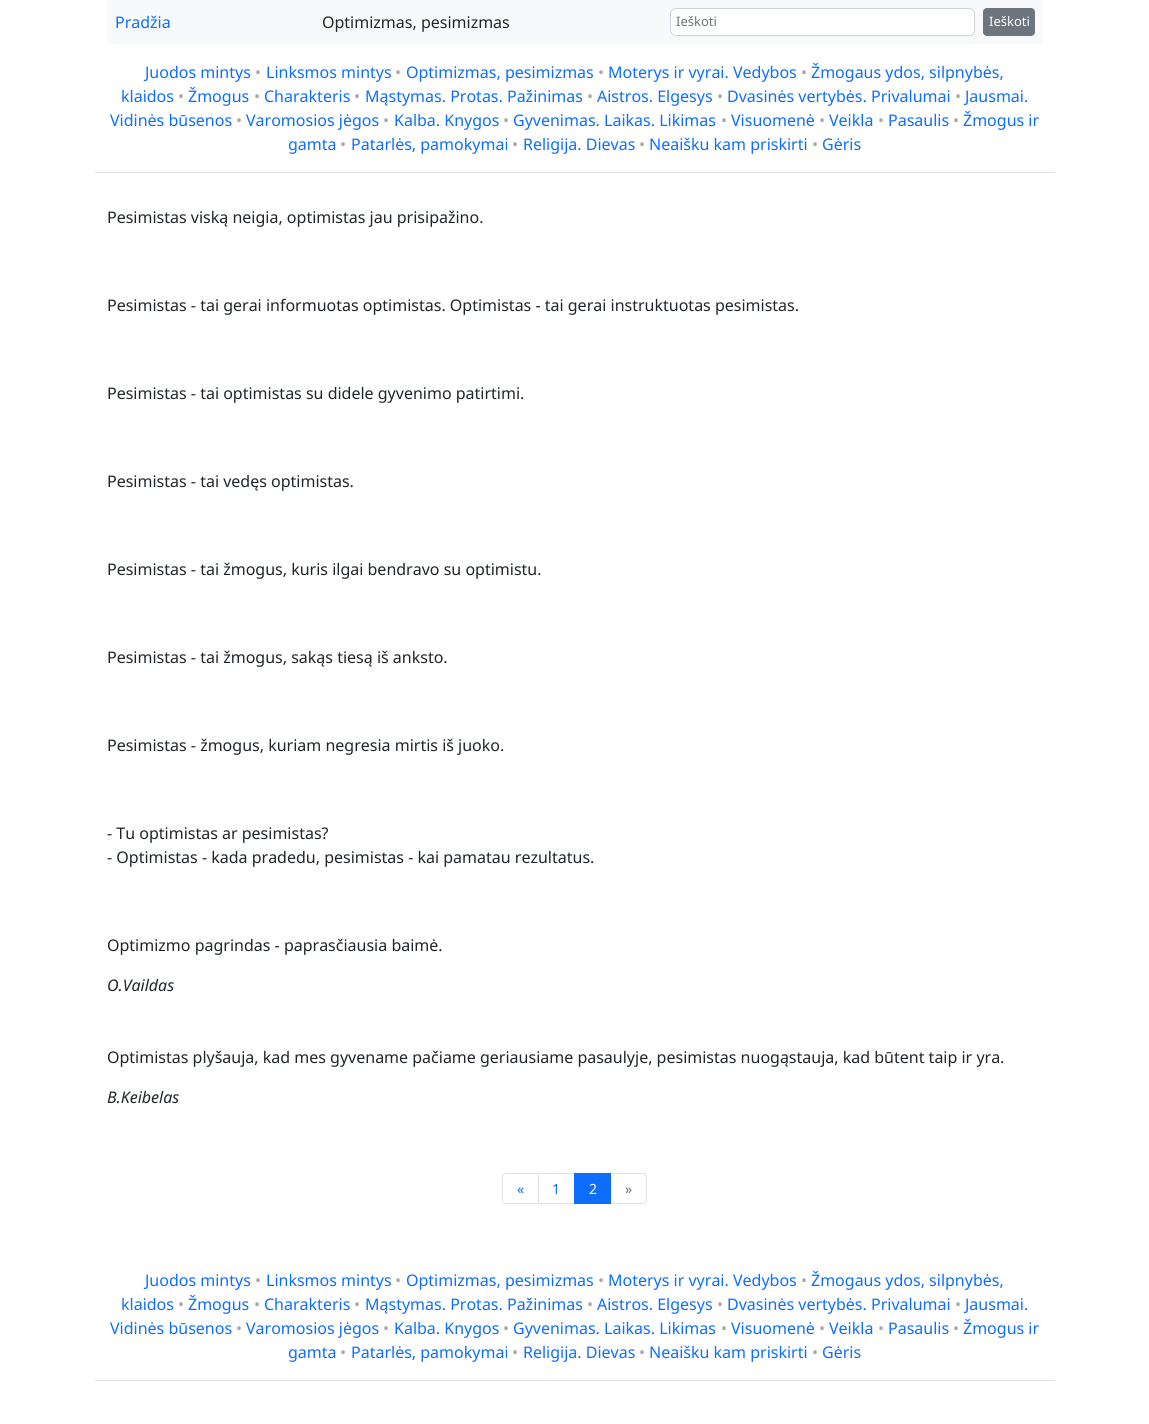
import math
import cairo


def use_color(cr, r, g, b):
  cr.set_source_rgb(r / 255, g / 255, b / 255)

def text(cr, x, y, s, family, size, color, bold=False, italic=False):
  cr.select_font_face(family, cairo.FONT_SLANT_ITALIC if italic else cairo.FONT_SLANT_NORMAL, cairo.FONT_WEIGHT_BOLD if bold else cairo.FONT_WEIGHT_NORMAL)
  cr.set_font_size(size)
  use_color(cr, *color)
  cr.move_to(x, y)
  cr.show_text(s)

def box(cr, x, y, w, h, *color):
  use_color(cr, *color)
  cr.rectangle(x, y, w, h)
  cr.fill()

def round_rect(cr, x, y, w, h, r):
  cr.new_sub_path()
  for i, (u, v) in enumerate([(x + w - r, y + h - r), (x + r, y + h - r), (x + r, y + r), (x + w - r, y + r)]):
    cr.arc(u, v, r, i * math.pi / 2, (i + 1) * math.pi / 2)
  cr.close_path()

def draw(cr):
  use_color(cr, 255, 255, 255)
  cr.paint()
  box(cr, 107, 0, 936, 44, 248, 249, 250)
  use_color(cr, 255, 255, 255)
  round_rect(cr, 670.5, 8.5, 304, 27, 5.5)
  cr.fill_preserve()
  use_color(cr, 206, 212, 218)
  cr.set_line_width(1)
  cr.stroke()
  use_color(cr, 108, 117, 125)
  round_rect(cr, 983.5, 8.5, 51, 27, 3.5)
  cr.fill_preserve()
  cr.stroke()
  box(cr, 95, 172, 960, 1, 222, 226, 230)
  cr.new_path()
  cr.move_to(506, 1173.5)
  cr.line_to(538.5, 1173.5)
  cr.line_to(538.5, 1203.5)
  cr.line_to(506, 1203.5)
  cr.curve_to(504, 1203.5, 502.5, 1202, 502.5, 1200)
  cr.line_to(502.5, 1177)
  cr.curve_to(502.5, 1175, 504, 1173.5, 506, 1173.5)
  cr.close_path()
  cr.stroke()
  cr.rectangle(538.5, 1173.5, 36, 30)
  cr.stroke()
  cr.new_path()
  cr.move_to(610.5, 1173.5)
  cr.line_to(643, 1173.5)
  cr.curve_to(645, 1173.5, 646.5, 1175, 646.5, 1177)
  cr.line_to(646.5, 1200)
  cr.curve_to(646.5, 1202, 645, 1203.5, 643, 1203.5)
  cr.line_to(610.5, 1203.5)
  cr.close_path()
  cr.stroke()
  box(cr, 574, 1173, 37, 31, 13, 110, 253)
  box(cr, 95, 1380, 960, 1, 222, 226, 230)
  text(cr, 115, 28, "Pradžia", "Noto Sans", 16, (13, 110, 253))
  text(cr, 322, 28, "Optimizmas, pesimizmas", "Noto Sans", 16, (33, 37, 41))
  text(cr, 676, 26, "Ieškoti", "Noto Sans", 13, (108, 117, 125))
  text(cr, 989, 26, "Ieškoti", "Noto Sans", 13, (255, 255, 255))
  text(cr, 145, 78, "Juodos mintys", "Noto Sans", 16, (13, 110, 253))
  text(cr, 255, 78, "•", "Noto Sans", 16, (169, 169, 169))
  text(cr, 266, 78, "Linksmos mintys", "Noto Sans", 16, (13, 110, 253))
  text(cr, 395, 78, "•", "Noto Sans", 16, (169, 169, 169))
  text(cr, 406, 78, "Optimizmas, pesimizmas", "Noto Sans", 16, (13, 110, 253))
  text(cr, 598, 78, "•", "Noto Sans", 16, (169, 169, 169))
  text(cr, 608, 78, "Moterys ir vyrai. Vedybos", "Noto Sans", 16, (13, 110, 253))
  text(cr, 801, 78, "•", "Noto Sans", 16, (169, 169, 169))
  text(cr, 811, 78, "Žmogaus ydos, silpnybės,", "Noto Sans", 16, (13, 110, 253))
  text(cr, 121, 102, "klaidos", "Noto Sans", 16, (13, 110, 253))
  text(cr, 178, 102, "•", "Noto Sans", 16, (169, 169, 169))
  text(cr, 188, 102, "Žmogus", "Noto Sans", 16, (13, 110, 253))
  text(cr, 254, 102, "•", "Noto Sans", 16, (169, 169, 169))
  text(cr, 264, 102, "Charakteris", "Noto Sans", 16, (13, 110, 253))
  text(cr, 354, 102, "•", "Noto Sans", 16, (169, 169, 169))
  text(cr, 365, 102, "Mąstymas. Protas. Pažinimas", "Noto Sans", 16, (13, 110, 253))
  text(cr, 587, 102, "•", "Noto Sans", 16, (169, 169, 169))
  text(cr, 597, 102, "Aistros. Elgesys", "Noto Sans", 16, (13, 110, 253))
  text(cr, 717, 102, "•", "Noto Sans", 16, (169, 169, 169))
  text(cr, 727, 102, "Dvasinės vertybės. Privalumai", "Noto Sans", 16, (13, 110, 253))
  text(cr, 955, 102, "•", "Noto Sans", 16, (169, 169, 169))
  text(cr, 965, 102, "Jausmai.", "Noto Sans", 16, (13, 110, 253))
  text(cr, 110, 126, "Vidinės būsenos", "Noto Sans", 16, (13, 110, 253))
  text(cr, 236, 126, "•", "Noto Sans", 16, (169, 169, 169))
  text(cr, 246, 126, "Varomosios jėgos", "Noto Sans", 16, (13, 110, 253))
  text(cr, 383, 126, "•", "Noto Sans", 16, (169, 169, 169))
  text(cr, 394, 126, "Kalba. Knygos", "Noto Sans", 16, (13, 110, 253))
  text(cr, 503, 126, "•", "Noto Sans", 16, (169, 169, 169))
  text(cr, 513, 126, "Gyvenimas. Laikas. Likimas", "Noto Sans", 16, (13, 110, 253))
  text(cr, 721, 126, "•", "Noto Sans", 16, (169, 169, 169))
  text(cr, 731, 126, "Visuomenė", "Noto Sans", 16, (13, 110, 253))
  text(cr, 819, 126, "•", "Noto Sans", 16, (169, 169, 169))
  text(cr, 829, 126, "Veikla", "Noto Sans", 16, (13, 110, 253))
  text(cr, 878, 126, "•", "Noto Sans", 16, (169, 169, 169))
  text(cr, 888, 126, "Pasaulis", "Noto Sans", 16, (13, 110, 253))
  text(cr, 953, 126, "•", "Noto Sans", 16, (169, 169, 169))
  text(cr, 963, 126, "Žmogus ir", "Noto Sans", 16, (13, 110, 253))
  text(cr, 288, 150, "gamta", "Noto Sans", 16, (13, 110, 253))
  text(cr, 340, 150, "•", "Noto Sans", 16, (169, 169, 169))
  text(cr, 351, 150, "Patarlės, pamokymai", "Noto Sans", 16, (13, 110, 253))
  text(cr, 512, 150, "•", "Noto Sans", 16, (169, 169, 169))
  text(cr, 523, 150, "Religija. Dievas", "Noto Sans", 16, (13, 110, 253))
  text(cr, 639, 150, "•", "Noto Sans", 16, (169, 169, 169))
  text(cr, 649, 150, "Neaišku kam priskirti", "Noto Sans", 16, (13, 110, 253))
  text(cr, 812, 150, "•", "Noto Sans", 16, (169, 169, 169))
  text(cr, 822, 150, "Gėris", "Noto Sans", 16, (13, 110, 253))
  text(cr, 107, 223, "Pesimistas viską neigia, optimistas jau prisipažino.", "Noto Sans", 16, (33, 37, 41))
  text(cr, 107, 311, "Pesimistas - tai gerai informuotas optimistas. Optimistas - tai gerai instruktuotas pesimistas.", "Noto Sans", 16, (33, 37, 41))
  text(cr, 107, 399, "Pesimistas - tai optimistas su didele gyvenimo patirtimi.", "Noto Sans", 16, (33, 37, 41))
  text(cr, 107, 487, "Pesimistas - tai vedęs optimistas.", "Noto Sans", 16, (33, 37, 41))
  text(cr, 107, 575, "Pesimistas - tai žmogus, kuris ilgai bendravo su optimistu.", "Noto Sans", 16, (33, 37, 41))
  text(cr, 107, 663, "Pesimistas - tai žmogus, sakąs tiesą iš anksto.", "Noto Sans", 16, (33, 37, 41))
  text(cr, 107, 751, "Pesimistas - žmogus, kuriam negresia mirtis iš juoko.", "Noto Sans", 16, (33, 37, 41))
  text(cr, 107, 839, "- Tu optimistas ar pesimistas?", "Noto Sans", 16, (33, 37, 41))
  text(cr, 107, 863, "- Optimistas - kada pradedu, pesimistas - kai pamatau rezultatus.", "Noto Sans", 16, (33, 37, 41))
  text(cr, 107, 951, "Optimizmo pagrindas - paprasčiausia baimė.", "Noto Sans", 16, (33, 37, 41))
  text(cr, 107, 991, "O.Vaildas", "Noto Sans", 16, (33, 37, 41), italic=True)
  text(cr, 107, 1063, "Optimistas plyšauja, kad mes gyvename pačiame geriausiame pasaulyje, pesimistas nuogąstauja, kad būtent taip ir yra.", "Noto Sans", 16, (33, 37, 41))
  text(cr, 107, 1103, "B.Keibelas", "Noto Sans", 16, (33, 37, 41), italic=True)
  text(cr, 517, 1194, "«", "Noto Sans", 14, (13, 110, 253))
  text(cr, 552, 1194, "1", "Noto Sans", 14, (13, 110, 253))
  text(cr, 589, 1194, "2", "Noto Sans", 14, (255, 255, 255))
  text(cr, 625, 1194, "»", "Noto Sans", 14, (108, 117, 125))
  text(cr, 145, 1286, "Juodos mintys", "Noto Sans", 16, (13, 110, 253))
  text(cr, 255, 1286, "•", "Noto Sans", 16, (169, 169, 169))
  text(cr, 266, 1286, "Linksmos mintys", "Noto Sans", 16, (13, 110, 253))
  text(cr, 395, 1286, "•", "Noto Sans", 16, (169, 169, 169))
  text(cr, 406, 1286, "Optimizmas, pesimizmas", "Noto Sans", 16, (13, 110, 253))
  text(cr, 598, 1286, "•", "Noto Sans", 16, (169, 169, 169))
  text(cr, 608, 1286, "Moterys ir vyrai. Vedybos", "Noto Sans", 16, (13, 110, 253))
  text(cr, 801, 1286, "•", "Noto Sans", 16, (169, 169, 169))
  text(cr, 811, 1286, "Žmogaus ydos, silpnybės,", "Noto Sans", 16, (13, 110, 253))
  text(cr, 121, 1310, "klaidos", "Noto Sans", 16, (13, 110, 253))
  text(cr, 178, 1310, "•", "Noto Sans", 16, (169, 169, 169))
  text(cr, 188, 1310, "Žmogus", "Noto Sans", 16, (13, 110, 253))
  text(cr, 254, 1310, "•", "Noto Sans", 16, (169, 169, 169))
  text(cr, 264, 1310, "Charakteris", "Noto Sans", 16, (13, 110, 253))
  text(cr, 354, 1310, "•", "Noto Sans", 16, (169, 169, 169))
  text(cr, 365, 1310, "Mąstymas. Protas. Pažinimas", "Noto Sans", 16, (13, 110, 253))
  text(cr, 587, 1310, "•", "Noto Sans", 16, (169, 169, 169))
  text(cr, 597, 1310, "Aistros. Elgesys", "Noto Sans", 16, (13, 110, 253))
  text(cr, 717, 1310, "•", "Noto Sans", 16, (169, 169, 169))
  text(cr, 727, 1310, "Dvasinės vertybės. Privalumai", "Noto Sans", 16, (13, 110, 253))
  text(cr, 955, 1310, "•", "Noto Sans", 16, (169, 169, 169))
  text(cr, 965, 1310, "Jausmai.", "Noto Sans", 16, (13, 110, 253))
  text(cr, 110, 1334, "Vidinės būsenos", "Noto Sans", 16, (13, 110, 253))
  text(cr, 236, 1334, "•", "Noto Sans", 16, (169, 169, 169))
  text(cr, 246, 1334, "Varomosios jėgos", "Noto Sans", 16, (13, 110, 253))
  text(cr, 383, 1334, "•", "Noto Sans", 16, (169, 169, 169))
  text(cr, 394, 1334, "Kalba. Knygos", "Noto Sans", 16, (13, 110, 253))
  text(cr, 503, 1334, "•", "Noto Sans", 16, (169, 169, 169))
  text(cr, 513, 1334, "Gyvenimas. Laikas. Likimas", "Noto Sans", 16, (13, 110, 253))
  text(cr, 721, 1334, "•", "Noto Sans", 16, (169, 169, 169))
  text(cr, 731, 1334, "Visuomenė", "Noto Sans", 16, (13, 110, 253))
  text(cr, 819, 1334, "•", "Noto Sans", 16, (169, 169, 169))
  text(cr, 829, 1334, "Veikla", "Noto Sans", 16, (13, 110, 253))
  text(cr, 878, 1334, "•", "Noto Sans", 16, (169, 169, 169))
  text(cr, 888, 1334, "Pasaulis", "Noto Sans", 16, (13, 110, 253))
  text(cr, 953, 1334, "•", "Noto Sans", 16, (169, 169, 169))
  text(cr, 963, 1334, "Žmogus ir", "Noto Sans", 16, (13, 110, 253))
  text(cr, 288, 1358, "gamta", "Noto Sans", 16, (13, 110, 253))
  text(cr, 340, 1358, "•", "Noto Sans", 16, (169, 169, 169))
  text(cr, 351, 1358, "Patarlės, pamokymai", "Noto Sans", 16, (13, 110, 253))
  text(cr, 512, 1358, "•", "Noto Sans", 16, (169, 169, 169))
  text(cr, 523, 1358, "Religija. Dievas", "Noto Sans", 16, (13, 110, 253))
  text(cr, 639, 1358, "•", "Noto Sans", 16, (169, 169, 169))
  text(cr, 649, 1358, "Neaišku kam priskirti", "Noto Sans", 16, (13, 110, 253))
  text(cr, 812, 1358, "•", "Noto Sans", 16, (169, 169, 169))
  text(cr, 822, 1358, "Gėris", "Noto Sans", 16, (13, 110, 253))


surface = cairo.ImageSurface(cairo.FORMAT_RGB24, 1149, 1424)
cr = cairo.Context(surface)
options = cairo.FontOptions()
options.set_hint_metrics(cairo.HINT_METRICS_OFF)
options.set_hint_style(cairo.HINT_STYLE_NONE)
cr.set_font_options(options)
cr.set_miter_limit(4)
draw(cr)
surface.write_to_png("out.png")
